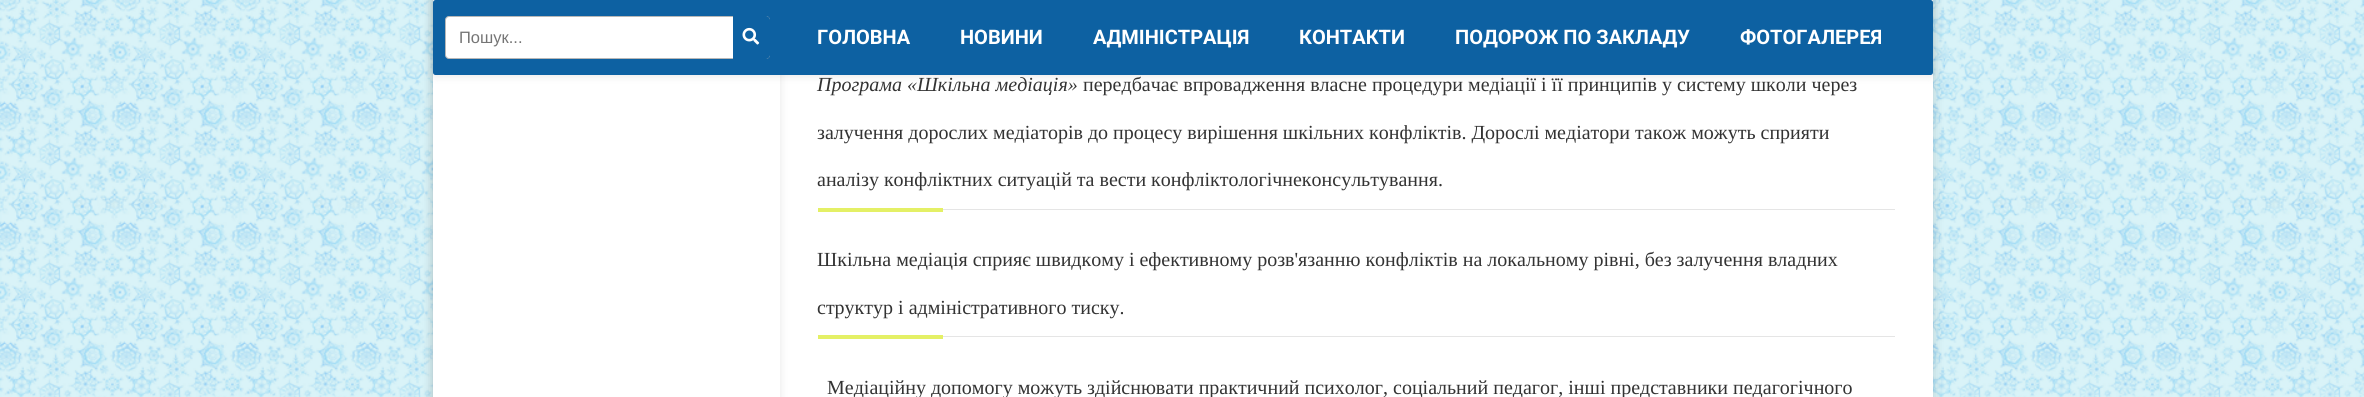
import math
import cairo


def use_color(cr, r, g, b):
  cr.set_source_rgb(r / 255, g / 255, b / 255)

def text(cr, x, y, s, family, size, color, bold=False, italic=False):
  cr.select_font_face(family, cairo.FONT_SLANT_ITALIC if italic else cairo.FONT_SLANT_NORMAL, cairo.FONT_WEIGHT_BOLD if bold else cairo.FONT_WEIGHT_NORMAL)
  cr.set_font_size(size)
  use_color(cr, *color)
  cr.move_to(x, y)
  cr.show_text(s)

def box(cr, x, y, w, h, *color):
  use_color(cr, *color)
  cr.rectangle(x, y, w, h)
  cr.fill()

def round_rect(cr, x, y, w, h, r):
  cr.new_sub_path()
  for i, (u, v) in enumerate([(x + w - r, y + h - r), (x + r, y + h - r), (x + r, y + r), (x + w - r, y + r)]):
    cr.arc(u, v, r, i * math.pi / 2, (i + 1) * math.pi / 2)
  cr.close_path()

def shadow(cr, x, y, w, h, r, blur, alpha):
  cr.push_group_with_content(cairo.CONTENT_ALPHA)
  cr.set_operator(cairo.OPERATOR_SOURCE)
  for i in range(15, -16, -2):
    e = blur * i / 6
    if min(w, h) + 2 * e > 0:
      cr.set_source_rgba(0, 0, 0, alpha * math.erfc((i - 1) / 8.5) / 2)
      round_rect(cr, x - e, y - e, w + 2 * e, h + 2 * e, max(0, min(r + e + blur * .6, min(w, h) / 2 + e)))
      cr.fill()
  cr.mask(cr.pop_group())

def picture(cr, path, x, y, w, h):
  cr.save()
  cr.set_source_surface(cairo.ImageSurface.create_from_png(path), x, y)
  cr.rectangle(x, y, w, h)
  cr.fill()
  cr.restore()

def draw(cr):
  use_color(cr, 159, 224, 237)
  cr.paint()
  picture(cr, "img_01.png", 0, 0, 2364, 397)
  use_color(cr, 0, 0, 0)
  shadow(cr, 433, -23, 1500, 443, 5, 6, 0.15)
  box(cr, 433, 0, 1500, 397, 255, 255, 255)
  cr.save()
  cr.set_fill_rule(cairo.FILL_RULE_EVEN_ODD)
  cr.new_path()
  cr.move_to(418, 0)
  cr.line_to(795, 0)
  cr.line_to(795, 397)
  cr.line_to(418, 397)
  cr.close_path()
  cr.move_to(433, -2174)
  cr.line_to(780, -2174)
  cr.line_to(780, 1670)
  cr.line_to(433, 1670)
  cr.close_path()
  cr.clip()
  use_color(cr, 0, 0, 0)
  shadow(cr, 433, -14, 347, 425, 0, 4.5, 0.1)
  cr.restore()
  use_color(cr, 0, 0, 0)
  shadow(cr, 433, 1, 1500, 75, 2.5, 4.5, 0.1)
  use_color(cr, 13, 97, 162)
  round_rect(cr, 433, 0, 1500, 75, 2.5)
  cr.fill()
  use_color(cr, 255, 255, 255)
  round_rect(cr, 445.5, 16.5, 324, 42, 3.5)
  cr.fill_preserve()
  use_color(cr, 183, 183, 183)
  cr.set_line_width(1)
  cr.stroke()
  use_color(cr, 13, 97, 162)
  cr.new_path()
  cr.move_to(733, 16)
  cr.line_to(766, 16)
  cr.curve_to(768, 16, 770, 18, 770, 20)
  cr.line_to(770, 55)
  cr.curve_to(770, 57, 768, 59, 766, 59)
  cr.line_to(733, 59)
  cr.close_path()
  cr.fill()
  picture(cr, "img_02.png", 742, 27, 18, 18)
  box(cr, 943, 209, 952, 1, 229, 229, 229)
  box(cr, 818, 208, 125, 4, 228, 240, 101)
  box(cr, 943, 336, 952, 1, 229, 229, 229)
  box(cr, 818, 335, 125, 4, 228, 240, 101)
  text(cr, 459, 43, "Пошук...", "Liberation Sans", 16.5, (117, 117, 117))
  text(cr, 817, 44, "ГОЛОВНА", "Roboto", 20, (255, 255, 255), bold=True)
  text(cr, 960, 44, "НОВИНИ", "Roboto", 20, (255, 255, 255), bold=True)
  text(cr, 1093, 44, "АДМІНІСТРАЦІЯ", "Roboto", 20, (255, 255, 255), bold=True)
  text(cr, 1299, 44, "КОНТАКТИ", "Roboto", 20, (255, 255, 255), bold=True)
  text(cr, 1455, 44, "ПОДОРОЖ ПО ЗАКЛАДУ", "Roboto", 20, (255, 255, 255), bold=True)
  text(cr, 1740, 44, "ФОТОГАЛЕРЕЯ", "Roboto", 20, (255, 255, 255), bold=True)
  text(cr, 817, 91, "Програма «Шкільна медіація»", "Liberation Serif", 20, (51, 51, 51), italic=True)
  text(cr, 1083, 91, "передбачає впровадження власне процедури медіації і її принципів у систему школи через", "Liberation Serif", 20, (51, 51, 51))
  text(cr, 817, 139, "залучення дорослих медіаторів до процесу вирішення шкільних конфліктів. Дорослі медіатори також можуть сприяти", "Liberation Serif", 20, (51, 51, 51))
  text(cr, 817, 186, "аналізу конфліктних ситуацій та вести конфліктологічнеконсультування.", "Liberation Serif", 20, (51, 51, 51))
  text(cr, 817, 266, "Шкільна медіація сприяє швидкому і ефективному розв'язанню конфліктів на локальному рівні, без залучення владних", "Liberation Serif", 20, (51, 51, 51))
  text(cr, 817, 314, "структур і адміністративного тиску.", "Liberation Serif", 20, (51, 51, 51))
  text(cr, 827, 394, "Медіаційну допомогу можуть здійснювати практичний психолог, соціальний педагог, інші представники педагогічного", "Liberation Serif", 20, (51, 51, 51))


surface = cairo.ImageSurface(cairo.FORMAT_RGB24, 2364, 397)
cr = cairo.Context(surface)
options = cairo.FontOptions()
options.set_hint_metrics(cairo.HINT_METRICS_OFF)
options.set_hint_style(cairo.HINT_STYLE_NONE)
cr.set_font_options(options)
cr.set_miter_limit(4)
draw(cr)
surface.write_to_png("out.png")
